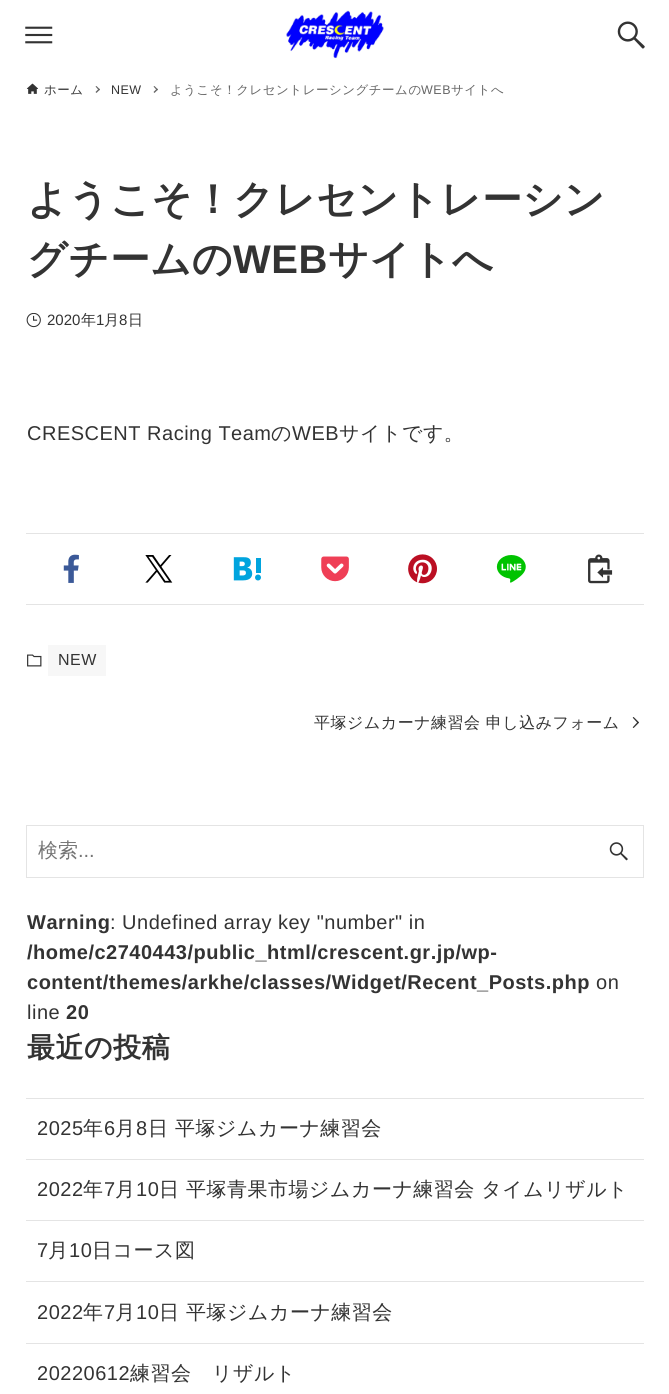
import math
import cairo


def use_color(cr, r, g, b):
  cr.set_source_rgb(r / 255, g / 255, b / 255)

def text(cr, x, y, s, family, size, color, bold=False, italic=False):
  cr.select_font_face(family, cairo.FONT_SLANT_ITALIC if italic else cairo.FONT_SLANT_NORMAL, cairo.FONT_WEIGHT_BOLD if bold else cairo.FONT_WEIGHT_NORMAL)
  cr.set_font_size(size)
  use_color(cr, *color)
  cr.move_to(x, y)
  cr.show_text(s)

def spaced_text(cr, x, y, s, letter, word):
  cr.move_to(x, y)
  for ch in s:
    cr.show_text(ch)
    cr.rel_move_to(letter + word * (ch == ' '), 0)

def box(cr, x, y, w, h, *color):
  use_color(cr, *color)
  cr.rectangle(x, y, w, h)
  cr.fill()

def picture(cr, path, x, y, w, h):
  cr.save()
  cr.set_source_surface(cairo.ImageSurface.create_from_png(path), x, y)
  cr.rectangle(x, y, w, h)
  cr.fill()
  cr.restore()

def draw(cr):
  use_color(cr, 255, 255, 255)
  cr.paint()
  picture(cr, "img_01.png", 25, 26, 28, 18)
  picture(cr, "img_02.png", 286, 10, 98, 49)
  picture(cr, "img_03.png", 617, 21, 28, 28)
  picture(cr, "img_04.png", 26, 83, 12, 11)
  use_color(cr, 102, 102, 102)
  cr.new_path()
  cr.move_to(96.5, 86)
  cr.line_to(100, 89.5)
  cr.line_to(99, 90.5)
  cr.line_to(95.5, 86.5)
  cr.close_path()
  cr.fill()
  cr.new_path()
  cr.move_to(99, 88.5)
  cr.line_to(100, 89.5)
  cr.line_to(96.5, 93)
  cr.line_to(95.5, 92)
  cr.close_path()
  cr.fill()
  cr.new_path()
  cr.move_to(154.5, 86)
  cr.line_to(158, 89.5)
  cr.line_to(157, 90.5)
  cr.line_to(153.5, 86.5)
  cr.close_path()
  cr.fill()
  cr.new_path()
  cr.move_to(157, 88.5)
  cr.line_to(158, 89.5)
  cr.line_to(154.5, 93)
  cr.line_to(153.5, 92)
  cr.close_path()
  cr.fill()
  picture(cr, "img_05.png", 26, 313, 15, 15)
  box(cr, 26, 533, 618, 1, 228, 228, 228)
  box(cr, 26, 604, 618, 1, 228, 228, 228)
  picture(cr, "img_06.png", 63, 554, 16, 29)
  picture(cr, "img_07.png", 145, 555, 28, 28)
  picture(cr, "img_08.png", 233, 557, 28, 24)
  picture(cr, "img_09.png", 321, 556, 28, 26)
  picture(cr, "img_10.png", 408, 554, 29, 30)
  picture(cr, "img_11.png", 496, 555, 30, 28)
  picture(cr, "img_12.png", 588, 554, 25, 30)
  picture(cr, "img_13.png", 27, 654, 15, 13)
  box(cr, 48, 645, 58, 31, 247, 247, 247)
  picture(cr, "img_14.png", 632, 717, 7, 11)
  cr.rectangle(26.5, 825.5, 617, 52)
  use_color(cr, 228, 228, 228)
  cr.set_line_width(1)
  cr.stroke()
  picture(cr, "img_15.png", 609, 842, 19, 19)
  box(cr, 26, 1098, 618, 1, 228, 228, 228)
  box(cr, 26, 1159, 618, 1, 228, 228, 228)
  box(cr, 26, 1220, 618, 1, 228, 228, 228)
  box(cr, 26, 1281, 618, 1, 228, 228, 228)
  box(cr, 26, 1343, 618, 1, 228, 228, 228)
  cr.select_font_face("WenQuanYi Zen Hei Medium")
  cr.set_font_size(12.5)
  use_color(cr, 51, 51, 51)
  spaced_text(cr, 44, 94, "ホーム", 0.5, 0)
  cr.select_font_face("Liberation Sans")
  spaced_text(cr, 111, 94, "NEW", 0.5, 0)
  cr.select_font_face("WenQuanYi Zen Hei Medium")
  use_color(cr, 102, 102, 102)
  spaced_text(cr, 170, 94, "ようこそ！クレセントレーシングチームの", 0.5, 0)
  cr.select_font_face("Liberation Sans")
  spaced_text(cr, 421, 94, "WEB", 0.5, 0)
  cr.select_font_face("WenQuanYi Zen Hei Medium")
  spaced_text(cr, 451, 94, "サイトへ", 0.5, 0)
  cr.select_font_face("WenQuanYi Zen Hei", cairo.FONT_SLANT_NORMAL, cairo.FONT_WEIGHT_BOLD)
  cr.set_font_size(40)
  use_color(cr, 51, 51, 51)
  spaced_text(cr, 27, 213, "ようこそ！クレセントレーシン", 0.5, 0)
  spaced_text(cr, 27, 273, "グチームの", 0.5, 0)
  cr.select_font_face("Liberation Sans", cairo.FONT_SLANT_NORMAL, cairo.FONT_WEIGHT_BOLD)
  spaced_text(cr, 233, 273, "WEB", 0.5, 0)
  cr.select_font_face("WenQuanYi Zen Hei", cairo.FONT_SLANT_NORMAL, cairo.FONT_WEIGHT_BOLD)
  spaced_text(cr, 328, 273, "サイトへ", 0.5, 0)
  text(cr, 47, 325, "2020", "Liberation Sans", 15, (51, 51, 51))
  text(cr, 81, 325, "年", "WenQuanYi Zen Hei Medium", 15, (51, 51, 51))
  text(cr, 96, 325, "1", "Liberation Sans", 15, (51, 51, 51))
  text(cr, 104, 325, "月", "WenQuanYi Zen Hei Medium", 15, (51, 51, 51))
  text(cr, 119, 325, "8", "Liberation Sans", 15, (51, 51, 51))
  text(cr, 128, 325, "日", "WenQuanYi Zen Hei Medium", 15, (51, 51, 51))
  cr.select_font_face("Liberation Sans")
  cr.set_font_size(20)
  spaced_text(cr, 27, 440, "CRESCENT Racing Team", 0.5, 0)
  cr.select_font_face("WenQuanYi Zen Hei Medium")
  spaced_text(cr, 271, 440, "の", 0.5, 0)
  cr.select_font_face("Liberation Sans")
  spaced_text(cr, 292, 440, "WEB", 0.5, 0)
  cr.select_font_face("WenQuanYi Zen Hei Medium")
  spaced_text(cr, 339, 440, "サイトです。", 0.5, 0)
  cr.select_font_face("Liberation Sans")
  cr.set_font_size(16)
  spaced_text(cr, 58, 665, "NEW", 0.5, 0)
  cr.select_font_face("WenQuanYi Zen Hei Medium")
  spaced_text(cr, 314, 728, "平塚ジムカーナ練習会 申し込みフォーム", 0.5, 0)
  text(cr, 38, 857, "検索", "WenQuanYi Zen Hei Medium", 20, (117, 117, 117))
  text(cr, 78, 857, "...", "Liberation Sans", 20, (117, 117, 117))
  cr.select_font_face("Liberation Sans", cairo.FONT_SLANT_NORMAL, cairo.FONT_WEIGHT_BOLD)
  use_color(cr, 51, 51, 51)
  spaced_text(cr, 27, 929, "Warning", 0.5, 0)
  cr.select_font_face("Liberation Sans")
  spaced_text(cr, 110, 929, ": Undefined array key \"number\" in", 0.5, 0)
  cr.select_font_face("Liberation Sans", cairo.FONT_SLANT_NORMAL, cairo.FONT_WEIGHT_BOLD)
  spaced_text(cr, 27, 959, "/home/c2740443/public_html/crescent.gr.jp/wp-", 0.5, 0)
  spaced_text(cr, 27, 989, "content/themes/arkhe/classes/Widget/Recent_Posts.php", 0.5, 0)
  cr.select_font_face("Liberation Sans")
  spaced_text(cr, 596, 989, "on", 0.5, 0)
  spaced_text(cr, 27, 1019, "line", 0.5, 0)
  cr.select_font_face("Liberation Sans", cairo.FONT_SLANT_NORMAL, cairo.FONT_WEIGHT_BOLD)
  spaced_text(cr, 66, 1019, "20", 0.5, 0)
  cr.select_font_face("WenQuanYi Zen Hei", cairo.FONT_SLANT_NORMAL, cairo.FONT_WEIGHT_BOLD)
  cr.set_font_size(28)
  spaced_text(cr, 27, 1057, "最近の投稿", 0.5, 0)
  cr.select_font_face("Liberation Sans")
  cr.set_font_size(20)
  spaced_text(cr, 37, 1135, "2025", 0.5, 0)
  cr.select_font_face("WenQuanYi Zen Hei Medium")
  spaced_text(cr, 83, 1135, "年", 0.5, 0)
  cr.select_font_face("Liberation Sans")
  spaced_text(cr, 104, 1135, "6", 0.5, 0)
  cr.select_font_face("WenQuanYi Zen Hei Medium")
  spaced_text(cr, 115, 1135, "月", 0.5, 0)
  cr.select_font_face("Liberation Sans")
  spaced_text(cr, 136, 1135, "8", 0.5, 0)
  cr.select_font_face("WenQuanYi Zen Hei Medium")
  spaced_text(cr, 148, 1135, "日 平塚ジムカーナ練習会", 0.5, 0)
  cr.select_font_face("Liberation Sans")
  spaced_text(cr, 37, 1196, "2022", 0.5, 0)
  cr.select_font_face("WenQuanYi Zen Hei Medium")
  spaced_text(cr, 83, 1196, "年", 0.5, 0)
  cr.select_font_face("Liberation Sans")
  spaced_text(cr, 104, 1196, "7", 0.5, 0)
  cr.select_font_face("WenQuanYi Zen Hei Medium")
  spaced_text(cr, 115, 1196, "月", 0.5, 0)
  cr.select_font_face("Liberation Sans")
  spaced_text(cr, 136, 1196, "10", 0.5, 0)
  cr.select_font_face("WenQuanYi Zen Hei Medium")
  spaced_text(cr, 159, 1196, "日 平塚青果市場ジムカーナ練習会 タイムリザルト", 0.5, 0)
  cr.select_font_face("Liberation Sans")
  spaced_text(cr, 37, 1257, "7", 0.5, 0)
  cr.select_font_face("WenQuanYi Zen Hei Medium")
  spaced_text(cr, 48, 1257, "月", 0.5, 0)
  cr.select_font_face("Liberation Sans")
  spaced_text(cr, 69, 1257, "10", 0.5, 0)
  cr.select_font_face("WenQuanYi Zen Hei Medium")
  spaced_text(cr, 92, 1257, "日コース図", 0.5, 0)
  cr.select_font_face("Liberation Sans")
  spaced_text(cr, 37, 1319, "2022", 0.5, 0)
  cr.select_font_face("WenQuanYi Zen Hei Medium")
  spaced_text(cr, 83, 1319, "年", 0.5, 0)
  cr.select_font_face("Liberation Sans")
  spaced_text(cr, 104, 1319, "7", 0.5, 0)
  cr.select_font_face("WenQuanYi Zen Hei Medium")
  spaced_text(cr, 115, 1319, "月", 0.5, 0)
  cr.select_font_face("Liberation Sans")
  spaced_text(cr, 136, 1319, "10", 0.5, 0)
  cr.select_font_face("WenQuanYi Zen Hei Medium")
  spaced_text(cr, 159, 1319, "日 平塚ジムカーナ練習会", 0.5, 0)
  cr.select_font_face("Liberation Sans")
  spaced_text(cr, 37, 1380, "20220612", 0.5, 0)
  cr.select_font_face("WenQuanYi Zen Hei Medium")
  spaced_text(cr, 130, 1380, "練習会　リザルト", 0.5, 0)


surface = cairo.ImageSurface(cairo.FORMAT_RGB24, 669, 1394)
cr = cairo.Context(surface)
options = cairo.FontOptions()
options.set_hint_metrics(cairo.HINT_METRICS_OFF)
options.set_hint_style(cairo.HINT_STYLE_NONE)
cr.set_font_options(options)
cr.set_miter_limit(4)
draw(cr)
surface.write_to_png("out.png")
